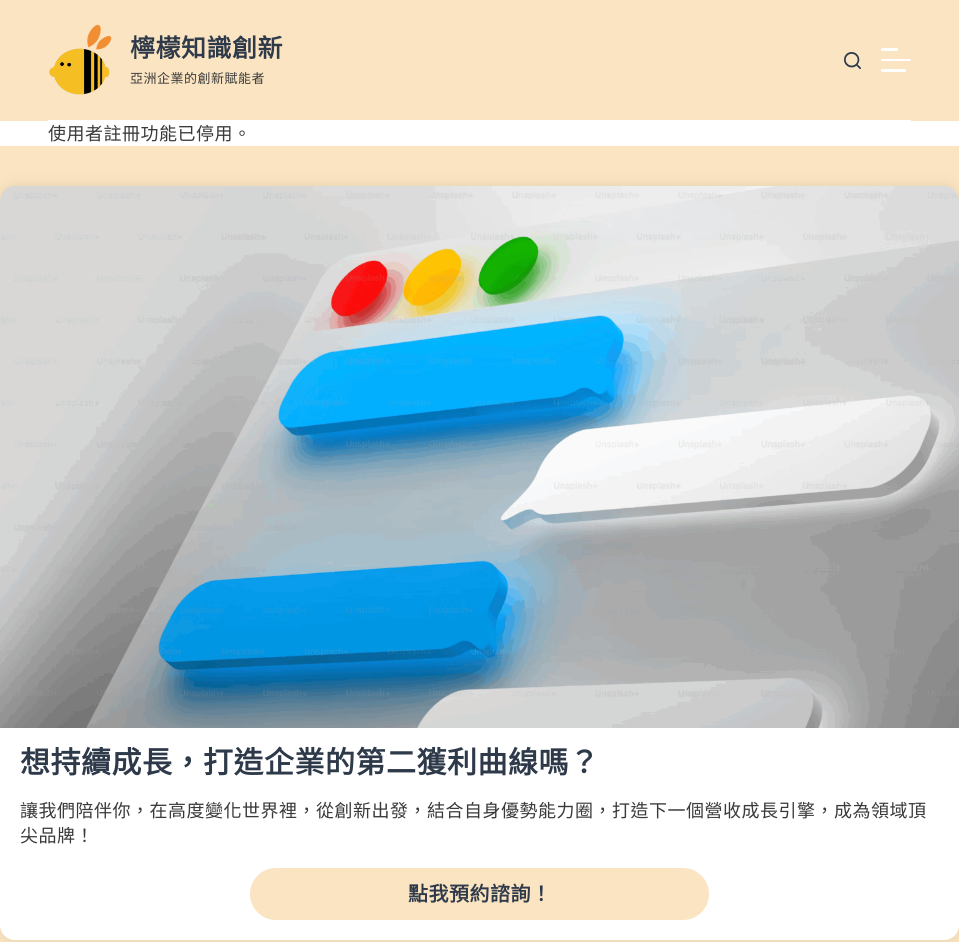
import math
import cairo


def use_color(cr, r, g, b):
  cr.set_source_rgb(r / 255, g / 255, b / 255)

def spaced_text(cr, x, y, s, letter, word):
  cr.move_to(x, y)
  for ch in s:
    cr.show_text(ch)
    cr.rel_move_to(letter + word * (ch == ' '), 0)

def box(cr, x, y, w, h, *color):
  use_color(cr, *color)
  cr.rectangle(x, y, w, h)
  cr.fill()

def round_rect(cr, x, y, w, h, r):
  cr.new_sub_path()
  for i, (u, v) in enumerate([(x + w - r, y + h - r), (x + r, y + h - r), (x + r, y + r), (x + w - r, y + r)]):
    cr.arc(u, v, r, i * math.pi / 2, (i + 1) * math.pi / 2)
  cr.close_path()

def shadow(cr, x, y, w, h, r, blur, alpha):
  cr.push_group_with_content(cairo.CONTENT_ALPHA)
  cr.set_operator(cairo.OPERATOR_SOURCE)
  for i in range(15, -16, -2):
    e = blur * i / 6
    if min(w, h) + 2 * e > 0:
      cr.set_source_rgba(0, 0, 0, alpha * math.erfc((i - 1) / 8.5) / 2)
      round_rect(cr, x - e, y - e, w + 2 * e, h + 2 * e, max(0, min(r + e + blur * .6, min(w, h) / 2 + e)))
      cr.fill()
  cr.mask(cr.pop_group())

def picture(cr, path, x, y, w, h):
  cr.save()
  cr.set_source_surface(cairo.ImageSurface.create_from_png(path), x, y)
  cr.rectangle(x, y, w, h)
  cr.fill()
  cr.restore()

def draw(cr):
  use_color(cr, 255, 255, 255)
  cr.paint()
  box(cr, 0, 0, 959, 121, 250, 228, 193)
  box(cr, 48, 120, 863, 1, 255, 255, 255)
  picture(cr, "img_01.png", 49, 24, 63, 71)
  picture(cr, "img_02.png", 844, 52, 17, 17)
  round_rect(cr, 881, 48, 17, 3, 1.5)
  cr.fill()
  round_rect(cr, 881, 59, 30, 2, 1)
  cr.fill()
  round_rect(cr, 881, 69, 25, 3, 1.5)
  cr.fill()
  box(cr, 0, 146, 959, 796, 250, 228, 193)
  use_color(cr, 0, 0, 0)
  shadow(cr, 0, 186, 959, 754, 15, 7.5, 0.09)
  picture(cr, "img_03.png", 0, 186, 959, 542)
  use_color(cr, 255, 255, 255)
  cr.new_path()
  cr.move_to(0, 728)
  cr.line_to(959, 728)
  cr.line_to(959, 925)
  cr.curve_to(959, 933.5, 952.5, 940, 944, 940)
  cr.line_to(15, 940)
  cr.curve_to(6.5, 940, 0, 933.5, 0, 925)
  cr.close_path()
  cr.fill()
  use_color(cr, 250, 228, 193)
  round_rect(cr, 250, 868, 459, 52, 26)
  cr.fill()
  cr.select_font_face("Noto Sans CJK TC", cairo.FONT_SLANT_NORMAL, cairo.FONT_WEIGHT_BOLD)
  cr.set_font_size(25)
  use_color(cr, 46, 58, 74)
  spaced_text(cr, 130, 57, "檸檬知識創新", 0.5, 0)
  cr.select_font_face("Noto Sans CJK TC")
  cr.set_font_size(13)
  use_color(cr, 58, 58, 58)
  spaced_text(cr, 130, 83, "亞洲企業的創新賦能者", 0.5, 0)
  cr.set_font_size(18)
  spaced_text(cr, 48, 140, "使用者註冊功能已停用。", 0.5, 0)
  cr.select_font_face("Noto Sans CJK TC", cairo.FONT_SLANT_NORMAL, cairo.FONT_WEIGHT_BOLD)
  cr.set_font_size(30)
  use_color(cr, 46, 58, 74)
  spaced_text(cr, 20, 773, "想持續成長，打造企業的第二獲利曲線嗎？", 0.5, 0)
  cr.select_font_face("Noto Sans CJK TC")
  cr.set_font_size(18)
  use_color(cr, 58, 58, 58)
  spaced_text(cr, 20, 817, "讓我們陪伴你，在高度變化世界裡，從創新出發，結合自身優勢能力圈，打造下一個營收成長引擎，成為領域頂", 0.5, 0)
  spaced_text(cr, 20, 842, "尖品牌！", 0.5, 0)
  cr.select_font_face("Noto Sans CJK TC", cairo.FONT_SLANT_NORMAL, cairo.FONT_WEIGHT_BOLD)
  cr.set_font_size(20)
  use_color(cr, 46, 58, 74)
  spaced_text(cr, 408, 901, "點我預約諮詢！", 0.5, 0)


surface = cairo.ImageSurface(cairo.FORMAT_RGB24, 959, 942)
cr = cairo.Context(surface)
options = cairo.FontOptions()
options.set_hint_metrics(cairo.HINT_METRICS_OFF)
options.set_hint_style(cairo.HINT_STYLE_NONE)
cr.set_font_options(options)
cr.set_miter_limit(4)
draw(cr)
surface.write_to_png("out.png")
